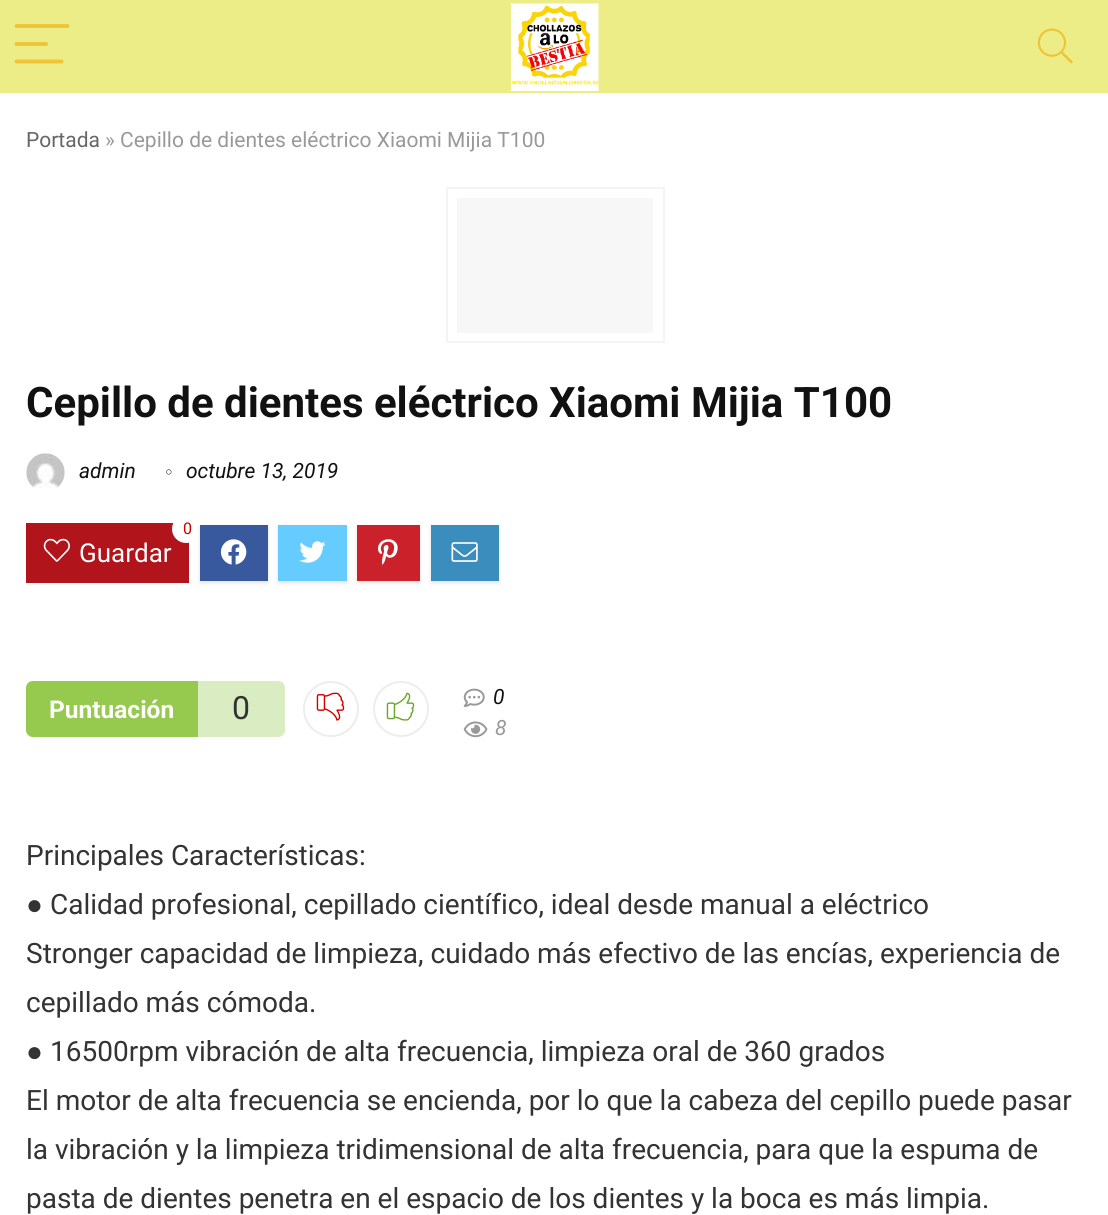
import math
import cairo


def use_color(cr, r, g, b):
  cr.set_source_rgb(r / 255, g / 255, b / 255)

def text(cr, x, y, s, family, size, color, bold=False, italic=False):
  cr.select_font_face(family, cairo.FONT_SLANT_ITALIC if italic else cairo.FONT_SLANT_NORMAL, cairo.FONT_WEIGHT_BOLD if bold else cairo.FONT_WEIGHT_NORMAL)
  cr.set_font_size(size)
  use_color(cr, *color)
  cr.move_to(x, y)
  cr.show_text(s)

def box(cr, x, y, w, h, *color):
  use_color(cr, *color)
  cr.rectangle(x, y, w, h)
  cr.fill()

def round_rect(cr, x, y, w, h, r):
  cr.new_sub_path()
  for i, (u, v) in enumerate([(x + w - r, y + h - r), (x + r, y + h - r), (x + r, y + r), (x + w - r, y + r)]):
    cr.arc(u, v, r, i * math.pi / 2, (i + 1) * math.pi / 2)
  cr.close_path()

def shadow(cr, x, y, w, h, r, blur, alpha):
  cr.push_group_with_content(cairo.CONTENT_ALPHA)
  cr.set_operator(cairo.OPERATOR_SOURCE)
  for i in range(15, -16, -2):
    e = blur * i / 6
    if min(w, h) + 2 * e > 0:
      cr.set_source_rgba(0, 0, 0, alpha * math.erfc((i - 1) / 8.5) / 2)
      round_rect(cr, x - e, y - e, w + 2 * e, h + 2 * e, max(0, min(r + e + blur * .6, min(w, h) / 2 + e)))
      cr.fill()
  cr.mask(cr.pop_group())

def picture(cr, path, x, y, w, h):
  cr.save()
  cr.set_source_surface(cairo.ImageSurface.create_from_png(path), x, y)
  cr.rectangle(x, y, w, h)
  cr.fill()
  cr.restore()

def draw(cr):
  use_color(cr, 255, 255, 255)
  cr.paint()
  box(cr, 0, 0, 1108, 93, 237, 237, 135)
  cr.new_path()
  cr.move_to(16.5, 26)
  cr.line_to(67.5, 26)
  cr.move_to(16.5, 44)
  cr.line_to(46, 44)
  cr.move_to(16.5, 61.5)
  cr.line_to(61.5, 61.5)
  use_color(cr, 239, 196, 55)
  cr.set_line_width(3.9)
  cr.set_line_cap(cairo.LINE_CAP_ROUND)
  cr.stroke()
  picture(cr, "img_01.png", 511, 3, 88, 88)
  picture(cr, "img_02.png", 1037, 28, 36, 36)
  cr.rectangle(447, 188, 217, 154)
  use_color(cr, 244, 244, 244)
  cr.set_line_width(2)
  cr.set_line_cap(cairo.LINE_CAP_BUTT)
  cr.stroke()
  box(cr, 457, 198, 196, 135, 247, 247, 247)
  picture(cr, "img_03.png", 26, 453, 39, 35)
  picture(cr, "img_04.png", 166, 469, 6, 6)
  box(cr, 26, 523, 163, 60, 177, 20, 26)
  cr.save()
  cr.rectangle(26, 518, 1022, 75)
  cr.clip()
  use_color(cr, 255, 255, 255)
  round_rect(cr, 172, 515, 29, 28, 14)
  cr.fill()
  cr.restore()
  picture(cr, "img_05.png", 43, 538, 27, 24)
  use_color(cr, 228, 228, 228)
  shadow(cr, 200, 527, 68, 56, 0, 2, 1)
  box(cr, 200, 525, 68, 56, 57, 89, 159)
  picture(cr, "img_06.png", 220, 539, 27, 26)
  use_color(cr, 228, 228, 228)
  shadow(cr, 278, 527, 69, 56, 0, 2, 1)
  box(cr, 278, 525, 69, 56, 102, 204, 255)
  picture(cr, "img_07.png", 299, 541, 27, 22)
  use_color(cr, 228, 228, 228)
  shadow(cr, 357, 527, 63, 56, 0, 2, 1)
  box(cr, 357, 525, 63, 56, 202, 33, 42)
  picture(cr, "img_08.png", 378, 539, 20, 26)
  use_color(cr, 228, 228, 228)
  shadow(cr, 431, 527, 68, 56, 0, 2, 1)
  box(cr, 431, 525, 68, 56, 59, 141, 189)
  picture(cr, "img_09.png", 451, 542, 27, 20)
  use_color(cr, 150, 202, 78)
  cr.new_path()
  cr.move_to(33, 681)
  cr.line_to(198, 681)
  cr.line_to(198, 737)
  cr.line_to(33, 737)
  cr.curve_to(29, 737, 26, 734, 26, 730)
  cr.line_to(26, 688)
  cr.curve_to(26, 684, 29, 681, 33, 681)
  cr.close_path()
  cr.fill()
  use_color(cr, 218, 236, 194)
  cr.new_path()
  cr.move_to(198, 681)
  cr.line_to(278, 681)
  cr.curve_to(282, 681, 285, 684, 285, 688)
  cr.line_to(285, 730)
  cr.curve_to(285, 734, 282, 737, 278, 737)
  cr.line_to(198, 737)
  cr.close_path()
  cr.fill()
  cr.arc(331, 709, 27, 0, 2 * math.pi)
  use_color(cr, 237, 237, 237)
  cr.stroke()
  picture(cr, "img_10.png", 316, 692, 29, 29)
  cr.arc(401, 709, 27, 0, 2 * math.pi)
  cr.stroke()
  picture(cr, "img_11.png", 386, 692, 29, 29)
  picture(cr, "img_12.png", 463, 688, 22, 19)
  picture(cr, "img_13.png", 463, 721, 25, 17)
  text(cr, 26, 147, "Portada", "Roboto", 21, (102, 102, 102))
  text(cr, 105, 147, "» Cepillo de dientes eléctrico Xiaomi Mijia T100", "Roboto", 21, (153, 153, 153))
  text(cr, 26, 417, "Cepillo de dientes eléctrico Xiaomi Mijia T100", "Roboto", 42, (17, 17, 17), bold=True)
  text(cr, 79, 478, "admin", "Roboto", 21, (17, 17, 17), italic=True)
  text(cr, 186, 478, "octubre 13, 2019", "Roboto", 21, (17, 17, 17), italic=True)
  text(cr, 183, 534, "0", "Roboto", 16, (204, 0, 0))
  text(cr, 79, 562, "Guardar", "Roboto", 26, (255, 255, 255))
  text(cr, 49, 718, "Puntuación", "Roboto", 24.5, (255, 255, 255), bold=True)
  text(cr, 232, 719, "0", "Roboto", 32, (51, 51, 51))
  text(cr, 493, 704, "0", "Roboto", 21, (17, 17, 17), italic=True)
  text(cr, 495, 735, "8", "Roboto", 21, (153, 153, 153), italic=True)
  text(cr, 26, 865, "Principales Características:", "Roboto", 28, (51, 51, 51))
  text(cr, 26, 914, "●", "Liberation Sans", 28, (51, 51, 51))
  text(cr, 50, 914, "Calidad profesional, cepillado científico, ideal desde manual a eléctrico", "Roboto", 28, (51, 51, 51))
  text(cr, 26, 963, "Stronger capacidad de limpieza, cuidado más efectivo de las encías, experiencia de", "Roboto", 28, (51, 51, 51))
  text(cr, 26, 1012, "cepillado más cómoda.", "Roboto", 28, (51, 51, 51))
  text(cr, 26, 1061, "●", "Liberation Sans", 28, (51, 51, 51))
  text(cr, 50, 1061, "16500rpm vibración de alta frecuencia, limpieza oral de 360 grados", "Roboto", 28, (51, 51, 51))
  text(cr, 26, 1110, "El motor de alta frecuencia se encienda, por lo que la cabeza del cepillo puede pasar", "Roboto", 28, (51, 51, 51))
  text(cr, 26, 1159, "la vibración y la limpieza tridimensional de alta frecuencia, para que la espuma de", "Roboto", 28, (51, 51, 51))
  text(cr, 26, 1208, "pasta de dientes penetra en el espacio de los dientes y la boca es más limpia.", "Roboto", 28, (51, 51, 51))


surface = cairo.ImageSurface(cairo.FORMAT_RGB24, 1108, 1215)
cr = cairo.Context(surface)
options = cairo.FontOptions()
options.set_hint_metrics(cairo.HINT_METRICS_OFF)
options.set_hint_style(cairo.HINT_STYLE_NONE)
cr.set_font_options(options)
cr.set_miter_limit(4)
draw(cr)
surface.write_to_png("out.png")
